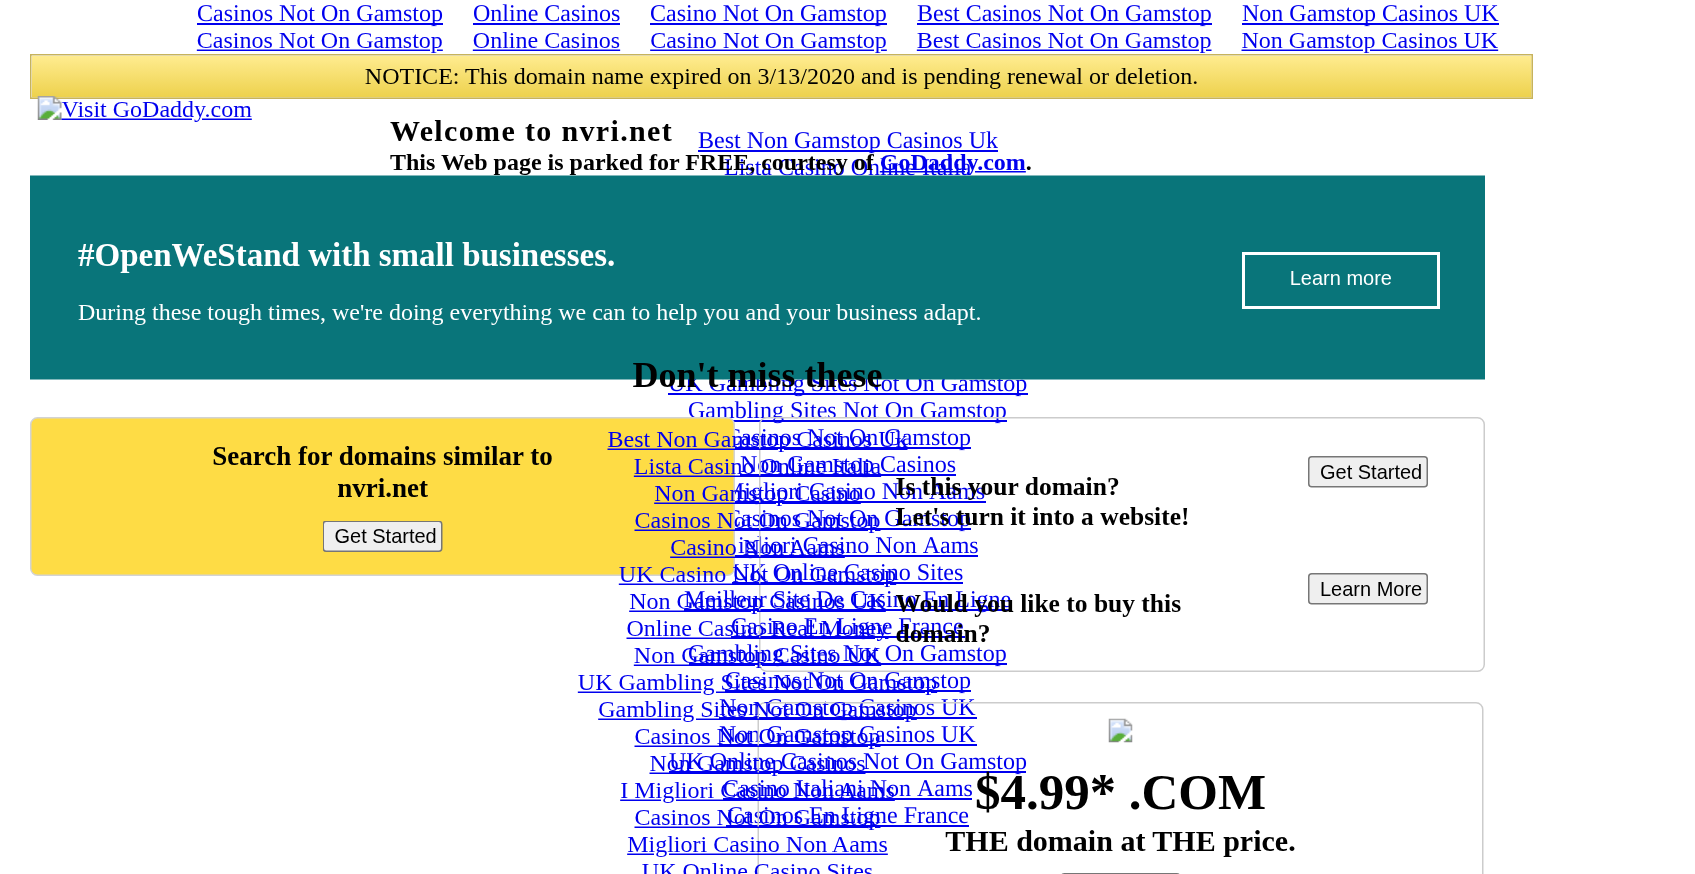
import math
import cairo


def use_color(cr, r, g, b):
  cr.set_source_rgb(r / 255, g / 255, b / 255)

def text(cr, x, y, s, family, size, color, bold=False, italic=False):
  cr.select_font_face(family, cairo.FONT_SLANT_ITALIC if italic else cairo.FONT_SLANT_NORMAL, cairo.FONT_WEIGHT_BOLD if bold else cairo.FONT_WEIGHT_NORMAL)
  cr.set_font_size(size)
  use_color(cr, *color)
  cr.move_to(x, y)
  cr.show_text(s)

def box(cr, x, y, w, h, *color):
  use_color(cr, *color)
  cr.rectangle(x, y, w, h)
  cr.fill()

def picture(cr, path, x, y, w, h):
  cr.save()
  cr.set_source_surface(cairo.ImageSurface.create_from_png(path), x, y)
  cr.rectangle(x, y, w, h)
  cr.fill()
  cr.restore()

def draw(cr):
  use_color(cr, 255, 255, 255)
  cr.paint()
  box(cr, 197, 23, 246, 2, 0, 0, 238)
  box(cr, 473, 23, 147, 2, 0, 0, 238)
  box(cr, 650, 23, 237, 2, 0, 0, 238)
  box(cr, 917, 23, 295, 2, 0, 0, 238)
  box(cr, 1242, 23, 257, 2, 0, 0, 238)
  box(cr, 698, 150, 300, 2, 0, 0, 238)
  box(cr, 668, 393, 360, 2, 0, 0, 238)
  box(cr, 732, 420, 275, 2, 0, 0, 238)
  box(cr, 735, 447, 236, 2, 0, 0, 238)
  box(cr, 740, 474, 216, 2, 0, 0, 238)
  box(cr, 735, 501, 251, 2, 0, 0, 238)
  box(cr, 735, 528, 236, 2, 0, 0, 238)
  box(cr, 735, 555, 243, 2, 0, 0, 238)
  box(cr, 732, 582, 231, 2, 0, 0, 238)
  box(cr, 684, 609, 327, 2, 0, 0, 238)
  box(cr, 731, 636, 234, 2, 0, 0, 238)
  box(cr, 689, 663, 318, 2, 0, 0, 238)
  box(cr, 725, 690, 246, 2, 0, 0, 238)
  box(cr, 719, 717, 258, 2, 0, 0, 238)
  box(cr, 719, 744, 258, 2, 0, 0, 238)
  box(cr, 669, 771, 357, 2, 0, 0, 238)
  box(cr, 723, 798, 249, 2, 0, 0, 238)
  box(cr, 726, 825, 243, 2, 0, 0, 238)
  text(cr, 197, 21, "Casinos Not On Gamstop", "Liberation Serif", 24, (0, 0, 238))
  text(cr, 473, 21, "Online Casinos", "Liberation Serif", 24, (0, 0, 238))
  text(cr, 650, 21, "Casino Not On Gamstop", "Liberation Serif", 24, (0, 0, 238))
  text(cr, 917, 21, "Best Casinos Not On Gamstop", "Liberation Serif", 24, (0, 0, 238))
  text(cr, 1242, 21, "Non Gamstop Casinos UK", "Liberation Serif", 24, (0, 0, 238))
  text(cr, 698, 148, "Best Non Gamstop Casinos Uk", "Liberation Serif", 24, (0, 0, 238))
  text(cr, 724, 175, "Lista Casino Online Italia", "Liberation Serif", 24, (0, 0, 238))
  text(cr, 668, 391, "UK Gambling Sites Not On Gamstop", "Liberation Serif", 24, (0, 0, 238))
  text(cr, 688, 418, "Gambling Sites Not On Gamstop", "Liberation Serif", 24, (0, 0, 238))
  text(cr, 725, 445, "Casinos Not On Gamstop", "Liberation Serif", 24, (0, 0, 238))
  text(cr, 740, 472, "Non Gamstop Casinos", "Liberation Serif", 24, (0, 0, 238))
  text(cr, 723, 499, "Migliori Casino Non Aams", "Liberation Serif", 24, (0, 0, 238))
  text(cr, 725, 526, "Casinos Not On Gamstop", "Liberation Serif", 24, (0, 0, 238))
  text(cr, 738, 553, "igliori Casino Non Aams", "Liberation Serif", 24, (0, 0, 238))
  text(cr, 732, 580, "UK Online Casino Sites", "Liberation Serif", 24, (0, 0, 238))
  text(cr, 684, 607, "Meilleur Site De Casino En Ligne", "Liberation Serif", 24, (0, 0, 238))
  text(cr, 731, 634, "Casino En Ligne France", "Liberation Serif", 24, (0, 0, 238))
  text(cr, 688, 661, "Gambling Sites Not On Gamstop", "Liberation Serif", 24, (0, 0, 238))
  text(cr, 725, 688, "Casinos Not On Gamstop", "Liberation Serif", 24, (0, 0, 238))
  text(cr, 719, 715, "Non Gamstop Casinos UK", "Liberation Serif", 24, (0, 0, 238))
  text(cr, 719, 742, "Non Gamstop Casinos UK", "Liberation Serif", 24, (0, 0, 238))
  text(cr, 669, 769, "UK Online Casinos Not On Gamstop", "Liberation Serif", 24, (0, 0, 238))
  text(cr, 723, 796, "Casino Italiani Non Aams", "Liberation Serif", 24, (0, 0, 238))
  text(cr, 727, 823, "Casinos En Ligne France", "Liberation Serif", 24, (0, 0, 238))
  picture(cr, "img_01.png", 30, 32, 1503, 842)


surface = cairo.ImageSurface(cairo.FORMAT_RGB24, 1695, 874)
cr = cairo.Context(surface)
options = cairo.FontOptions()
options.set_hint_metrics(cairo.HINT_METRICS_OFF)
options.set_hint_style(cairo.HINT_STYLE_NONE)
cr.set_font_options(options)
cr.set_miter_limit(4)
draw(cr)
surface.write_to_png("out.png")
